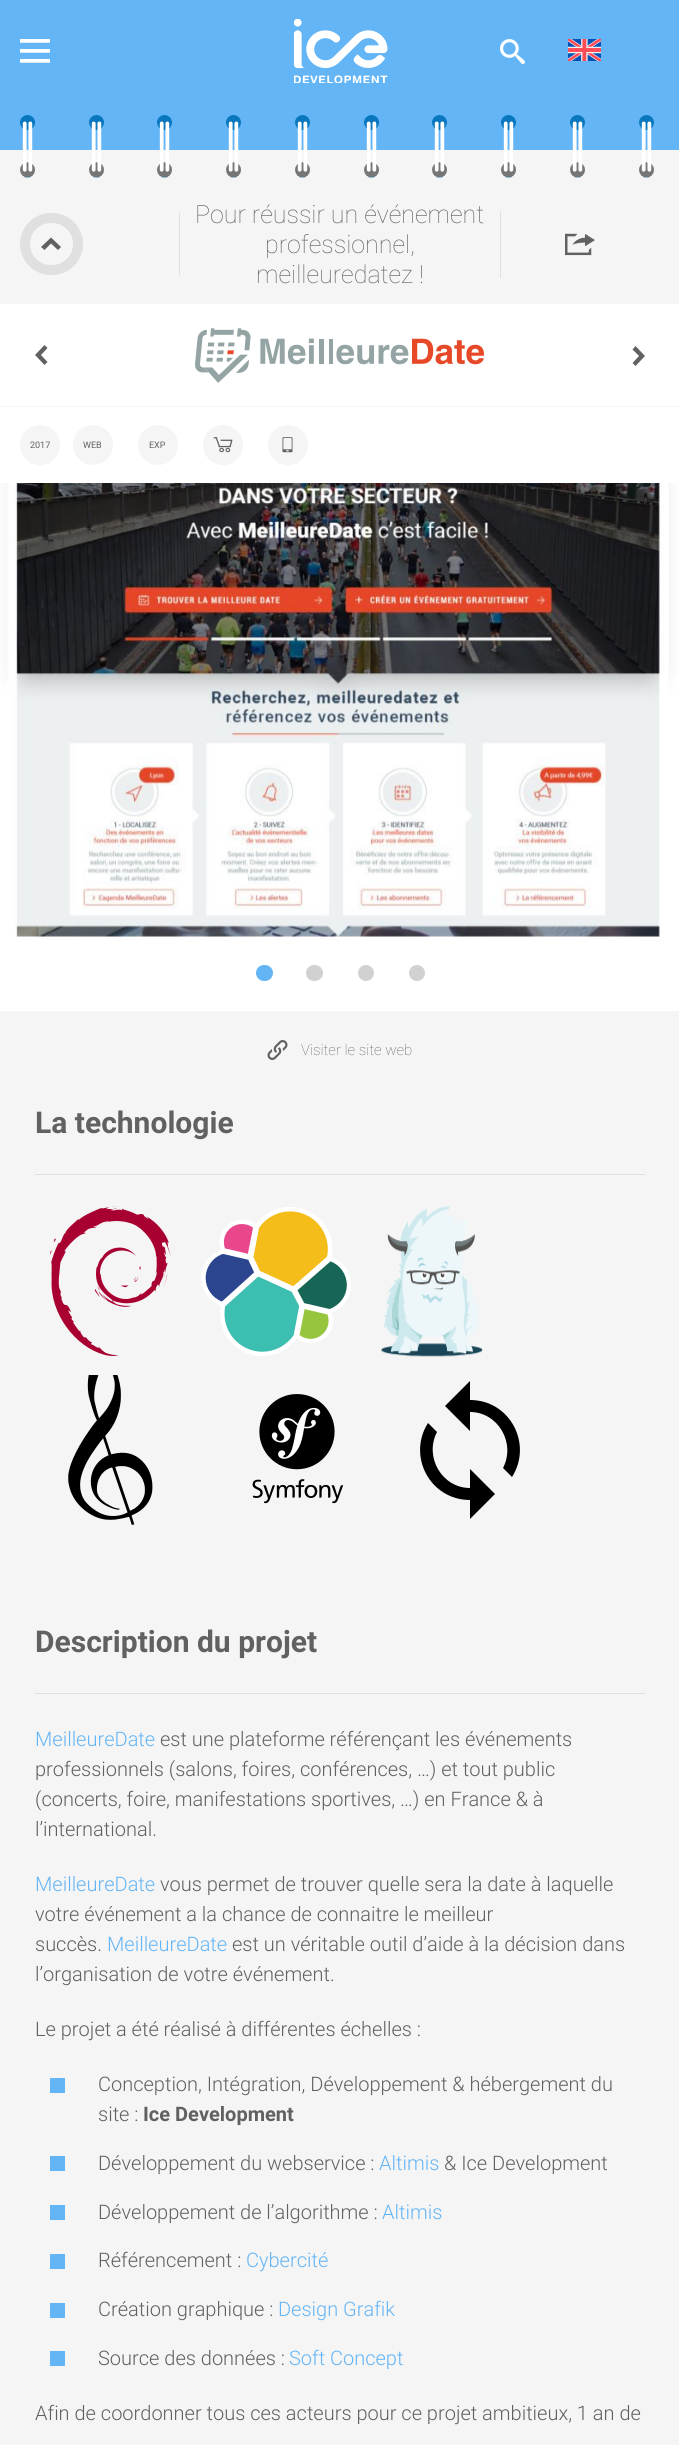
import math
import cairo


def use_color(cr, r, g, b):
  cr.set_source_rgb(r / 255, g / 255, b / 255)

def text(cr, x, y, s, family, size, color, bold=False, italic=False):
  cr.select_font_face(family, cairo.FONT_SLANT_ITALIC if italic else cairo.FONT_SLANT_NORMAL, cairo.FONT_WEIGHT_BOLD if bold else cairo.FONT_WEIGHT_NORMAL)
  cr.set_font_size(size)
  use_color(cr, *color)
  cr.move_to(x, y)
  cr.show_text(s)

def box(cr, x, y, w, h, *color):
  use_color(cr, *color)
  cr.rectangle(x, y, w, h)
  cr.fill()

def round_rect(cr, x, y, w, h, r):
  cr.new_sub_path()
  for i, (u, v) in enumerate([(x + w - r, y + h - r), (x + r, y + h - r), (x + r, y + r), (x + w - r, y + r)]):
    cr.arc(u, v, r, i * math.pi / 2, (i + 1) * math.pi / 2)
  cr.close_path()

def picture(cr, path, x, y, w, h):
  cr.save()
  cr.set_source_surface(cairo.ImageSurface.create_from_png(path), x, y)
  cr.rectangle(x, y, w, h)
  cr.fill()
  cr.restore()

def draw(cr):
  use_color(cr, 100, 181, 246)
  cr.paint()
  picture(cr, "img_01.png", 20, 39, 30, 24)
  picture(cr, "img_02.png", 294, 19, 94, 64)
  picture(cr, "img_03.png", 500, 39, 25, 25)
  picture(cr, "img_04.png", 568, 39, 33, 22)
  box(cr, 0, 150, 679, 2295, 245, 245, 245)
  picture(cr, "img_05.png", 20, 115, 635, 63)
  box(cr, 179, 213, 1, 62, 224, 224, 224)
  round_rect(cr, 25, 218, 53, 52, 26)
  cr.set_line_width(10)
  cr.stroke()
  use_color(cr, 97, 97, 97)
  cr.new_path()
  cr.move_to(41, 247)
  cr.line_to(51, 237.5)
  cr.line_to(61, 247)
  cr.line_to(58, 250)
  cr.line_to(51, 243.5)
  cr.line_to(44.5, 250)
  cr.close_path()
  cr.fill()
  box(cr, 500, 211, 1, 67, 224, 224, 224)
  picture(cr, "img_06.png", 565, 233, 30, 23)
  box(cr, 0, 304, 679, 179, 255, 255, 255)
  box(cr, 0, 406, 679, 1, 245, 245, 245)
  use_color(cr, 97, 97, 97)
  cr.new_path()
  cr.move_to(44.5, 365)
  cr.line_to(35, 355)
  cr.line_to(44.5, 345)
  cr.line_to(47.5, 348)
  cr.line_to(41, 355)
  cr.line_to(47.5, 362)
  cr.close_path()
  cr.fill()
  picture(cr, "img_07.png", 195, 328, 289, 55)
  cr.new_path()
  cr.move_to(635.5, 346)
  cr.line_to(645, 356)
  cr.line_to(635.5, 366)
  cr.line_to(632.5, 363)
  cr.line_to(639, 356)
  cr.line_to(632.5, 349.5)
  cr.close_path()
  cr.fill()
  use_color(cr, 245, 245, 245)
  cr.arc(40, 445, 20, 0, 2 * math.pi)
  cr.fill()
  cr.arc(93, 445, 20, 0, 2 * math.pi)
  cr.fill()
  cr.arc(158, 445, 20, 0, 2 * math.pi)
  cr.fill()
  cr.arc(223, 445, 20, 0, 2 * math.pi)
  cr.fill()
  picture(cr, "img_08.png", 213, 437, 20, 16)
  cr.arc(288, 445, 20, 0, 2 * math.pi)
  cr.fill()
  picture(cr, "img_09.png", 282, 437, 11, 16)
  box(cr, 0, 936, 679, 75, 255, 255, 255)
  picture(cr, "img_10.png", 0, 483, 679, 454)
  use_color(cr, 100, 181, 246)
  round_rect(cr, 256, 965, 17, 16, 8)
  cr.fill()
  use_color(cr, 209, 209, 209)
  round_rect(cr, 306, 965, 17, 16, 8)
  cr.fill()
  cr.arc(366, 973, 8, 0, 2 * math.pi)
  cr.fill()
  cr.arc(417, 973, 8, 0, 2 * math.pi)
  cr.fill()
  picture(cr, "img_11.png", 267, 1040, 21, 20)
  box(cr, 35, 1174, 610, 1, 224, 224, 224)
  picture(cr, "img_12.png", 50, 1206, 121, 150)
  picture(cr, "img_13.png", 201, 1207, 150, 149)
  picture(cr, "img_14.png", 381, 1206, 102, 151)
  picture(cr, "img_15.png", 68, 1375, 85, 150)
  picture(cr, "img_16.png", 252, 1394, 92, 110)
  use_color(cr, 0, 0, 0)
  cr.new_path()
  cr.move_to(470, 1400)
  cr.line_to(470, 1381)
  cr.line_to(445, 1406)
  cr.line_to(470, 1431)
  cr.line_to(470, 1412)
  cr.curve_to(498, 1412, 516, 1443, 503, 1468)
  cr.line_to(512, 1477)
  cr.curve_to(533, 1444, 510, 1400, 470, 1400)
  cr.close_path()
  cr.move_to(470, 1488)
  cr.curve_to(442, 1488, 424, 1457, 437, 1432)
  cr.line_to(428, 1423)
  cr.curve_to(407, 1456, 430, 1500, 470, 1500)
  cr.line_to(470, 1519)
  cr.line_to(495, 1494)
  cr.line_to(470, 1469)
  cr.close_path()
  cr.fill()
  box(cr, 35, 1693, 610, 1, 224, 224, 224)
  box(cr, 50, 2078, 15, 15, 100, 181, 246)
  box(cr, 50, 2156, 15, 15, 100, 181, 246)
  box(cr, 50, 2205, 15, 15, 100, 181, 246)
  box(cr, 50, 2254, 15, 15, 100, 181, 246)
  box(cr, 50, 2303, 15, 15, 100, 181, 246)
  box(cr, 50, 2351, 15, 15, 100, 181, 246)
  text(cr, 195, 223, "Pour réussir un événement", "Roboto Thin", 25, (97, 97, 97))
  text(cr, 265, 253, "professionnel,", "Roboto Thin", 25, (97, 97, 97))
  text(cr, 256, 283, "meilleuredatez !", "Roboto Thin", 25, (97, 97, 97))
  text(cr, 30, 448, "2017", "Roboto", 9, (97, 97, 97))
  text(cr, 83, 448, "WEB", "Roboto", 9, (97, 97, 97))
  text(cr, 149, 448, "EXP", "Roboto", 9, (97, 97, 97))
  text(cr, 301, 1055, "Visiter le site web", "Roboto Thin", 15, (97, 97, 97))
  text(cr, 35, 1133, "La technologie", "Roboto", 30, (97, 97, 97), bold=True)
  text(cr, 35, 1652, "Description du projet", "Roboto", 30, (97, 97, 97), bold=True)
  text(cr, 35, 1746, "MeilleureDate", "Roboto Light", 20, (100, 181, 246))
  text(cr, 160, 1746, "est une plateforme référençant les événements", "Roboto Light", 20, (97, 97, 97))
  text(cr, 35, 1776, "professionnels (salons, foires, conférences, …) et tout public", "Roboto Light", 20, (97, 97, 97))
  text(cr, 35, 1806, "(concerts, foire, manifestations sportives, …) en France & à", "Roboto Light", 20, (97, 97, 97))
  text(cr, 35, 1836, "l’international.", "Roboto Light", 20, (97, 97, 97))
  text(cr, 35, 1891, "MeilleureDate", "Roboto Light", 20, (100, 181, 246))
  text(cr, 160, 1891, "vous permet de trouver quelle sera la date à laquelle", "Roboto Light", 20, (97, 97, 97))
  text(cr, 35, 1921, "votre événement a la chance de connaitre le meilleur", "Roboto Light", 20, (97, 97, 97))
  text(cr, 35, 1951, "succès.", "Roboto Light", 20, (97, 97, 97))
  text(cr, 107, 1951, "MeilleureDate", "Roboto Light", 20, (100, 181, 246))
  text(cr, 232, 1951, "est un véritable outil d’aide à la décision dans", "Roboto Light", 20, (97, 97, 97))
  text(cr, 35, 1981, "l’organisation de votre événement.", "Roboto Light", 20, (97, 97, 97))
  text(cr, 35, 2036, "Le projet a été réalisé à différentes échelles :", "Roboto Light", 20, (97, 97, 97))
  text(cr, 98, 2091, "Conception, Intégration, Développement & hébergement du", "Roboto Light", 20, (97, 97, 97))
  text(cr, 98, 2121, "site :", "Roboto Light", 20, (97, 97, 97))
  text(cr, 143, 2121, "Ice Development", "Roboto", 20, (97, 97, 97), bold=True)
  text(cr, 98, 2170, "Développement du webservice :", "Roboto Light", 20, (97, 97, 97))
  text(cr, 379, 2170, "Altimis", "Roboto Light", 20, (100, 181, 246))
  text(cr, 444, 2170, "& Ice Development", "Roboto Light", 20, (97, 97, 97))
  text(cr, 98, 2219, "Développement de l’algorithme :", "Roboto Light", 20, (97, 97, 97))
  text(cr, 382, 2219, "Altimis", "Roboto Light", 20, (100, 181, 246))
  text(cr, 98, 2267, "Référencement :", "Roboto Light", 20, (97, 97, 97))
  text(cr, 246, 2267, "Cybercité", "Roboto Light", 20, (100, 181, 246))
  text(cr, 98, 2316, "Création graphique :", "Roboto Light", 20, (97, 97, 97))
  text(cr, 278, 2316, "Design Grafik", "Roboto Light", 20, (100, 181, 246))
  text(cr, 98, 2365, "Source des données :", "Roboto Light", 20, (97, 97, 97))
  text(cr, 289, 2365, "Soft Concept", "Roboto Light", 20, (100, 181, 246))
  text(cr, 35, 2420, "Afin de coordonner tous ces acteurs pour ce projet ambitieux, 1 an de", "Roboto Light", 20, (97, 97, 97))


surface = cairo.ImageSurface(cairo.FORMAT_RGB24, 679, 2445)
cr = cairo.Context(surface)
options = cairo.FontOptions()
options.set_hint_metrics(cairo.HINT_METRICS_OFF)
options.set_hint_style(cairo.HINT_STYLE_NONE)
cr.set_font_options(options)
cr.set_miter_limit(4)
draw(cr)
surface.write_to_png("out.png")
